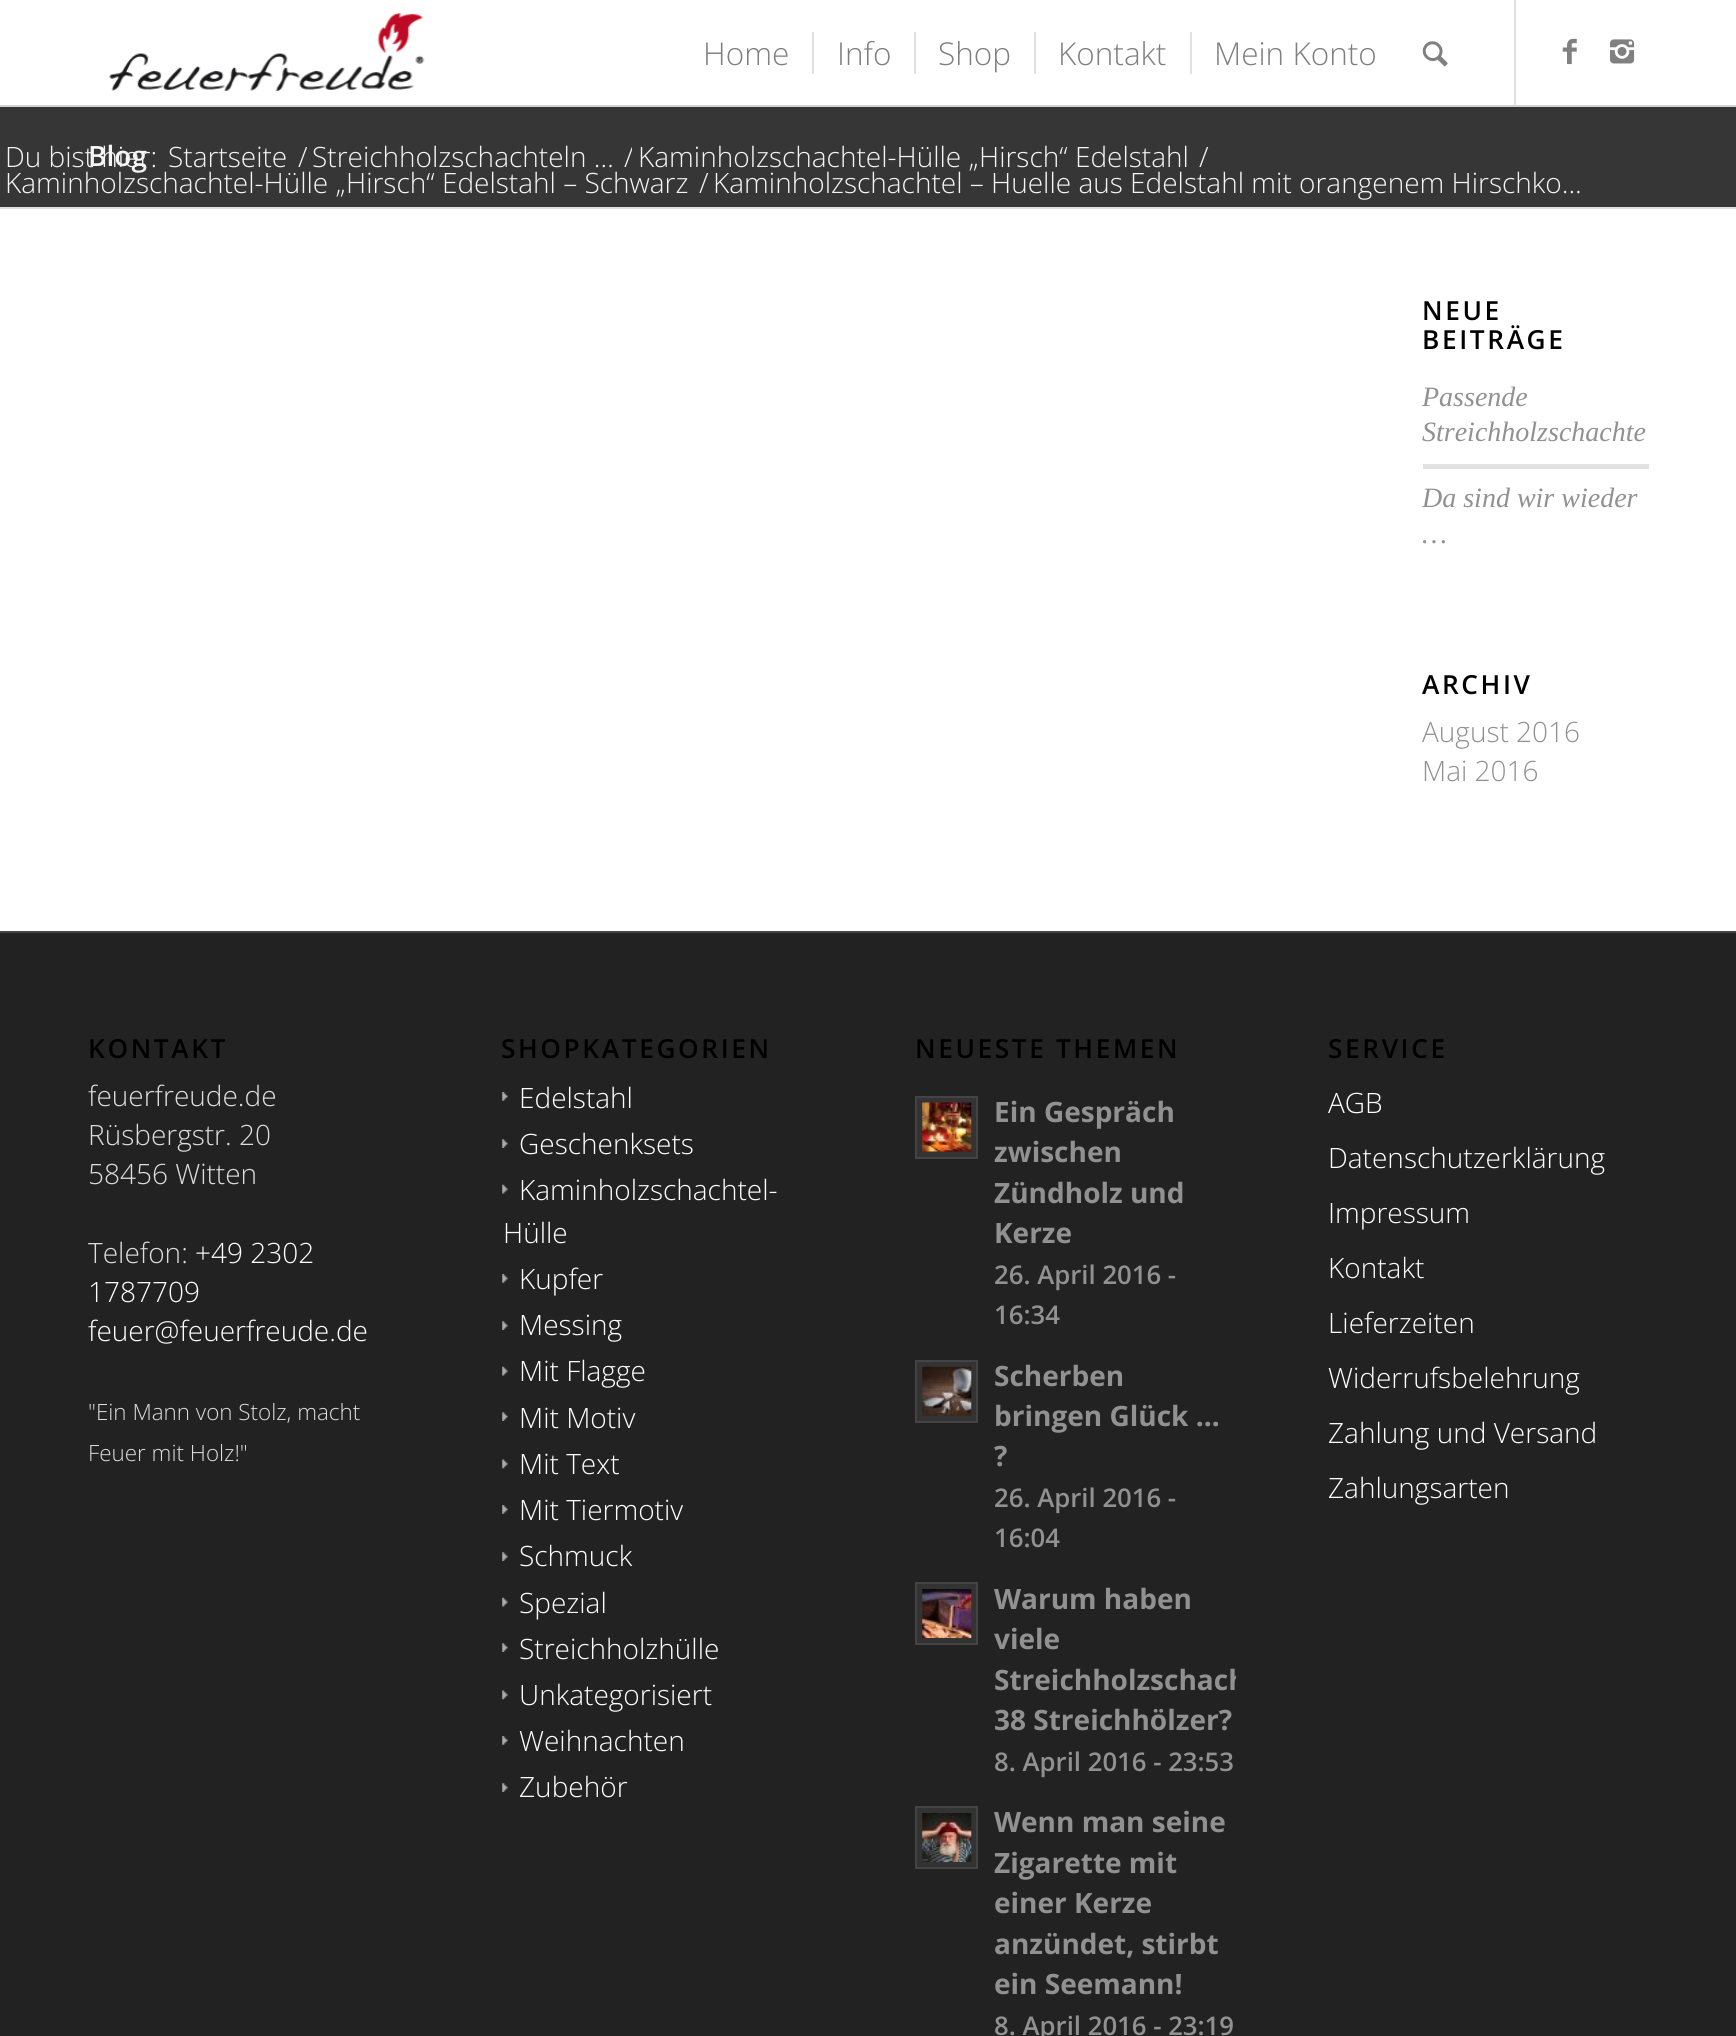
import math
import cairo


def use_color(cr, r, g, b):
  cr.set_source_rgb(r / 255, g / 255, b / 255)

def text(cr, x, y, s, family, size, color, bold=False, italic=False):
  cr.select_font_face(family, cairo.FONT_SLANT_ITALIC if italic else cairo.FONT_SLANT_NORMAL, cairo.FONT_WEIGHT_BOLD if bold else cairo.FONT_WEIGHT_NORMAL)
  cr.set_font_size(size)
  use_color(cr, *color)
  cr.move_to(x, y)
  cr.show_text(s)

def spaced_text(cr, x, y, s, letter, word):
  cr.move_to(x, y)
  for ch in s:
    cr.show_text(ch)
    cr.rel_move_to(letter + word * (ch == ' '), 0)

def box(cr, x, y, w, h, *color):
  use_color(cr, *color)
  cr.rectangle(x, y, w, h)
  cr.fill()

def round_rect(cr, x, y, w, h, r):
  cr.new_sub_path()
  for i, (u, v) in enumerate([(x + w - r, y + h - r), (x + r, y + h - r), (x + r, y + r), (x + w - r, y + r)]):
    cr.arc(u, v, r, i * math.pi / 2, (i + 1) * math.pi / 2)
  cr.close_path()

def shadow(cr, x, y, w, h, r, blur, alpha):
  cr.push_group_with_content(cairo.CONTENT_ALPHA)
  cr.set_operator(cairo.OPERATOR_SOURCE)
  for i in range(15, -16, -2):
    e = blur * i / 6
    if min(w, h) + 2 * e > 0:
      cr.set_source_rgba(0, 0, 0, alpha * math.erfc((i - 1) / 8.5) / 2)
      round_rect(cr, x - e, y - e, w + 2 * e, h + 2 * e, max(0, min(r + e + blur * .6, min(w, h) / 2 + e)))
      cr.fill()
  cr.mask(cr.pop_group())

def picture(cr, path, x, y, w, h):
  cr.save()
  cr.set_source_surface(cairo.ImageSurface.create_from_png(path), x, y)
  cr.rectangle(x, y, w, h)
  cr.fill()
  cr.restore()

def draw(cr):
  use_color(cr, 255, 255, 255)
  cr.paint()
  box(cr, 0, 107, 1736, 100, 54, 54, 54)
  box(cr, 0, 105, 1736, 2, 225, 225, 225)
  cr.save()
  cr.rectangle(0, 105, 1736, 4)
  cr.clip()
  use_color(cr, 0, 0, 0)
  shadow(cr, -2, -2, 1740, 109, 0, 2, 0.1)
  cr.restore()
  picture(cr, "img_01.png", 109, 13, 316, 78)
  box(cr, 1514, 0, 2, 105, 225, 225, 225)
  box(cr, 812, 32, 2, 42, 225, 225, 225)
  box(cr, 914, 32, 2, 42, 225, 225, 225)
  box(cr, 1034, 32, 2, 42, 225, 225, 225)
  box(cr, 1190, 32, 2, 42, 225, 225, 225)
  picture(cr, "img_02.png", 1422, 41, 26, 26)
  picture(cr, "img_03.png", 1562, 38, 15, 27)
  picture(cr, "img_04.png", 1610, 39, 25, 25)
  box(cr, 0, 207, 1736, 2, 225, 225, 225)
  box(cr, 1423, 464, 226, 5, 225, 225, 225)
  box(cr, 0, 933, 1736, 1103, 34, 34, 34)
  box(cr, 0, 931, 1736, 2, 68, 68, 68)
  picture(cr, "img_05.png", 502, 1092, 6, 9)
  picture(cr, "img_06.png", 502, 1139, 6, 9)
  picture(cr, "img_07.png", 502, 1184, 6, 10)
  picture(cr, "img_05.png", 502, 1274, 6, 9)
  picture(cr, "img_06.png", 502, 1321, 6, 9)
  picture(cr, "img_07.png", 502, 1366, 6, 10)
  picture(cr, "img_06.png", 502, 1412, 6, 9)
  picture(cr, "img_08.png", 502, 1459, 6, 10)
  picture(cr, "img_05.png", 502, 1505, 6, 9)
  picture(cr, "img_06.png", 502, 1552, 6, 9)
  picture(cr, "img_07.png", 502, 1597, 6, 10)
  picture(cr, "img_06.png", 502, 1643, 6, 9)
  picture(cr, "img_08.png", 502, 1690, 6, 10)
  picture(cr, "img_05.png", 502, 1736, 6, 9)
  picture(cr, "img_06.png", 502, 1783, 6, 9)
  use_color(cr, 51, 51, 51)
  cr.rectangle(916, 1097, 61, 61)
  cr.fill_preserve()
  use_color(cr, 68, 68, 68)
  cr.stroke()
  picture(cr, "img_09.png", 922, 1102, 50, 50)
  use_color(cr, 51, 51, 51)
  cr.rectangle(916, 1361, 61, 61)
  cr.fill_preserve()
  use_color(cr, 68, 68, 68)
  cr.stroke()
  picture(cr, "img_10.png", 922, 1366, 50, 50)
  use_color(cr, 51, 51, 51)
  cr.rectangle(916, 1583, 61, 61)
  cr.fill_preserve()
  use_color(cr, 68, 68, 68)
  cr.stroke()
  picture(cr, "img_11.png", 922, 1589, 50, 49)
  use_color(cr, 51, 51, 51)
  cr.rectangle(916, 1807, 61, 61)
  cr.fill_preserve()
  use_color(cr, 68, 68, 68)
  cr.stroke()
  picture(cr, "img_12.png", 922, 1813, 50, 49)
  text(cr, 703, 65, "Home", "Open Sans Light", 31.5, (128, 128, 128))
  text(cr, 837, 65, "Info", "Open Sans Light", 31.5, (128, 128, 128))
  text(cr, 938, 65, "Shop", "Open Sans Light", 31.5, (128, 128, 128))
  text(cr, 1058, 65, "Kontakt", "Open Sans Light", 31.5, (128, 128, 128))
  text(cr, 1214, 65, "Mein Konto", "Open Sans Light", 31.5, (128, 128, 128))
  text(cr, 88, 166, "Blog", "Open Sans SemiBold", 28, (245, 245, 245))
  text(cr, 5, 167, "Du bist hier:", "Open Sans Light", 28, (245, 245, 245))
  text(cr, 168, 167, "Startseite", "Open Sans Light", 28, (245, 245, 245))
  text(cr, 298, 167, "/", "Open Sans Light", 28, (245, 245, 245))
  text(cr, 312, 167, "Streichholzschachteln …", "Open Sans Light", 28, (245, 245, 245))
  cr.save()
  cr.rectangle(618, 144, 14, 26)
  cr.clip()
  text(cr, 624, 167, "/", "Open Sans Light", 28, (245, 245, 245))
  cr.restore()
  text(cr, 638, 167, "Kaminholzschachtel-Hülle „Hirsch“ Edelstahl", "Open Sans Light", 28, (245, 245, 245))
  text(cr, 1199, 167, "/", "Open Sans Light", 28, (245, 245, 245))
  text(cr, 5, 193, "Kaminholzschachtel-Hülle „Hirsch“ Edelstahl – Schwarz", "Open Sans Light", 28, (245, 245, 245))
  text(cr, 699, 193, "/", "Open Sans Light", 28, (245, 245, 245))
  text(cr, 713, 193, "Kaminholzschachtel – Huelle aus Edelstahl mit orangenem Hirschko...", "Open Sans Light", 28, (245, 245, 245))
  cr.select_font_face("Open Sans SemiBold")
  cr.set_font_size(26.25)
  use_color(cr, 0, 0, 0)
  spaced_text(cr, 1422, 320, "NEUE", 2.6, 0)
  spaced_text(cr, 1422, 349, "BEITRÄGE", 2.6, 0)
  text(cr, 1422, 406, "Passende", "Liberation Serif", 28, (145, 145, 145), italic=True)
  text(cr, 1422, 441, "Streichholzschachte", "Liberation Serif", 28, (145, 145, 145), italic=True)
  text(cr, 1422, 507, "Da sind wir wieder", "Liberation Serif", 28, (145, 145, 145), italic=True)
  text(cr, 1422, 543, "…", "Liberation Serif", 28, (145, 145, 145), italic=True)
  cr.select_font_face("Open Sans SemiBold")
  cr.set_font_size(26.25)
  use_color(cr, 0, 0, 0)
  spaced_text(cr, 1422, 694, "ARCHIV", 2.6, 0)
  text(cr, 1422, 742, "August 2016", "Open Sans Light", 28, (145, 145, 145))
  text(cr, 1422, 781, "Mai 2016", "Open Sans Light", 28, (145, 145, 145))
  cr.select_font_face("Open Sans SemiBold")
  cr.set_font_size(26.25)
  use_color(cr, 0, 0, 0)
  spaced_text(cr, 88, 1058, "KONTAKT", 2.6, 0)
  text(cr, 88, 1106, "feuerfreude.de", "Open Sans Light", 28, (221, 221, 221))
  text(cr, 88, 1145, "Rüsbergstr. 20", "Open Sans Light", 28, (221, 221, 221))
  text(cr, 88, 1184, "58456 Witten", "Open Sans Light", 28, (221, 221, 221))
  text(cr, 88, 1263, "Telefon:", "Open Sans Light", 28, (221, 221, 221))
  text(cr, 195, 1263, "+49 2302", "Open Sans Light", 28, (255, 255, 255))
  text(cr, 88, 1302, "1787709", "Open Sans Light", 28, (255, 255, 255))
  text(cr, 88, 1341, "feuer@feuerfreude.de", "Open Sans Light", 28, (255, 255, 255))
  text(cr, 88, 1420, "\"Ein Mann von Stolz, macht", "Open Sans Light", 22.4, (221, 221, 221))
  text(cr, 88, 1461, "Feuer mit Holz!\"", "Open Sans Light", 22.4, (221, 221, 221))
  cr.select_font_face("Open Sans SemiBold")
  cr.set_font_size(26.25)
  use_color(cr, 0, 0, 0)
  spaced_text(cr, 501, 1058, "SHOPKATEGORIEN", 2.6, 0)
  text(cr, 519, 1108, "Edelstahl", "Open Sans Light", 28, (255, 255, 255))
  text(cr, 519, 1154, "Geschenksets", "Open Sans Light", 28, (255, 255, 255))
  text(cr, 519, 1200, "Kaminholzschachtel-", "Open Sans Light", 28, (255, 255, 255))
  text(cr, 503, 1243, "Hülle", "Open Sans Light", 28, (255, 255, 255))
  text(cr, 519, 1289, "Kupfer", "Open Sans Light", 28, (255, 255, 255))
  text(cr, 519, 1335, "Messing", "Open Sans Light", 28, (255, 255, 255))
  text(cr, 519, 1381, "Mit Flagge", "Open Sans Light", 28, (255, 255, 255))
  text(cr, 519, 1428, "Mit Motiv", "Open Sans Light", 28, (255, 255, 255))
  text(cr, 519, 1474, "Mit Text", "Open Sans Light", 28, (255, 255, 255))
  text(cr, 519, 1520, "Mit Tiermotiv", "Open Sans Light", 28, (255, 255, 255))
  text(cr, 519, 1566, "Schmuck", "Open Sans Light", 28, (255, 255, 255))
  text(cr, 519, 1613, "Spezial", "Open Sans Light", 28, (255, 255, 255))
  text(cr, 519, 1659, "Streichholzhülle", "Open Sans Light", 28, (255, 255, 255))
  text(cr, 519, 1705, "Unkategorisiert", "Open Sans Light", 28, (255, 255, 255))
  text(cr, 519, 1751, "Weihnachten", "Open Sans Light", 28, (255, 255, 255))
  text(cr, 519, 1797, "Zubehör", "Open Sans Light", 28, (255, 255, 255))
  cr.select_font_face("Open Sans SemiBold")
  cr.set_font_size(26.25)
  use_color(cr, 0, 0, 0)
  spaced_text(cr, 915, 1058, "NEUESTE THEMEN", 2.6, 0)
  text(cr, 994, 1122, "Ein Gespräch", "Open Sans", 28, (145, 145, 145), bold=True)
  text(cr, 994, 1162, "zwischen", "Open Sans", 28, (145, 145, 145), bold=True)
  text(cr, 994, 1203, "Zündholz und", "Open Sans", 28, (145, 145, 145), bold=True)
  text(cr, 994, 1243, "Kerze", "Open Sans", 28, (145, 145, 145), bold=True)
  text(cr, 994, 1284, "26. April 2016 -", "Open Sans SemiBold", 25.75, (145, 145, 145))
  text(cr, 994, 1324, "16:34", "Open Sans SemiBold", 25.75, (145, 145, 145))
  text(cr, 994, 1386, "Scherben", "Open Sans", 28, (145, 145, 145), bold=True)
  text(cr, 994, 1426, "bringen Glück …", "Open Sans", 28, (145, 145, 145), bold=True)
  text(cr, 994, 1466, "?", "Open Sans", 28, (145, 145, 145), bold=True)
  text(cr, 994, 1507, "26. April 2016 -", "Open Sans SemiBold", 25.75, (145, 145, 145))
  text(cr, 994, 1547, "16:04", "Open Sans SemiBold", 25.75, (145, 145, 145))
  text(cr, 994, 1609, "Warum haben", "Open Sans", 28, (145, 145, 145), bold=True)
  text(cr, 994, 1649, "viele", "Open Sans", 28, (145, 145, 145), bold=True)
  cr.save()
  cr.rectangle(994, 1579, 242, 203)
  cr.clip()
  text(cr, 994, 1690, "Streichholzschach", "Open Sans", 28, (145, 145, 145), bold=True)
  cr.restore()
  text(cr, 994, 1730, "38 Streichhölzer?", "Open Sans", 28, (145, 145, 145), bold=True)
  text(cr, 994, 1771, "8. April 2016 - 23:53", "Open Sans SemiBold", 25.75, (145, 145, 145))
  text(cr, 994, 1832, "Wenn man seine", "Open Sans", 28, (145, 145, 145), bold=True)
  text(cr, 994, 1873, "Zigarette mit", "Open Sans", 28, (145, 145, 145), bold=True)
  text(cr, 994, 1913, "einer Kerze", "Open Sans", 28, (145, 145, 145), bold=True)
  text(cr, 994, 1954, "anzündet, stirbt", "Open Sans", 28, (145, 145, 145), bold=True)
  text(cr, 994, 1994, "ein Seemann!", "Open Sans", 28, (145, 145, 145), bold=True)
  text(cr, 994, 2035, "8. April 2016 - 23:19", "Open Sans SemiBold", 25.75, (145, 145, 145))
  cr.set_font_size(26.25)
  use_color(cr, 0, 0, 0)
  spaced_text(cr, 1328, 1058, "SERVICE", 2.6, 0)
  text(cr, 1328, 1113, "AGB", "Open Sans Light", 28, (255, 255, 255))
  text(cr, 1328, 1168, "Datenschutzerklärung", "Open Sans Light", 28, (255, 255, 255))
  text(cr, 1328, 1223, "Impressum", "Open Sans Light", 28, (255, 255, 255))
  text(cr, 1328, 1278, "Kontakt", "Open Sans Light", 28, (255, 255, 255))
  text(cr, 1328, 1333, "Lieferzeiten", "Open Sans Light", 28, (255, 255, 255))
  text(cr, 1328, 1388, "Widerrufsbelehrung", "Open Sans Light", 28, (255, 255, 255))
  text(cr, 1328, 1443, "Zahlung und Versand", "Open Sans Light", 28, (255, 255, 255))
  text(cr, 1328, 1498, "Zahlungsarten", "Open Sans Light", 28, (255, 255, 255))


surface = cairo.ImageSurface(cairo.FORMAT_RGB24, 1736, 2036)
cr = cairo.Context(surface)
options = cairo.FontOptions()
options.set_hint_metrics(cairo.HINT_METRICS_OFF)
options.set_hint_style(cairo.HINT_STYLE_NONE)
cr.set_font_options(options)
cr.set_miter_limit(4)
draw(cr)
surface.write_to_png("out.png")
